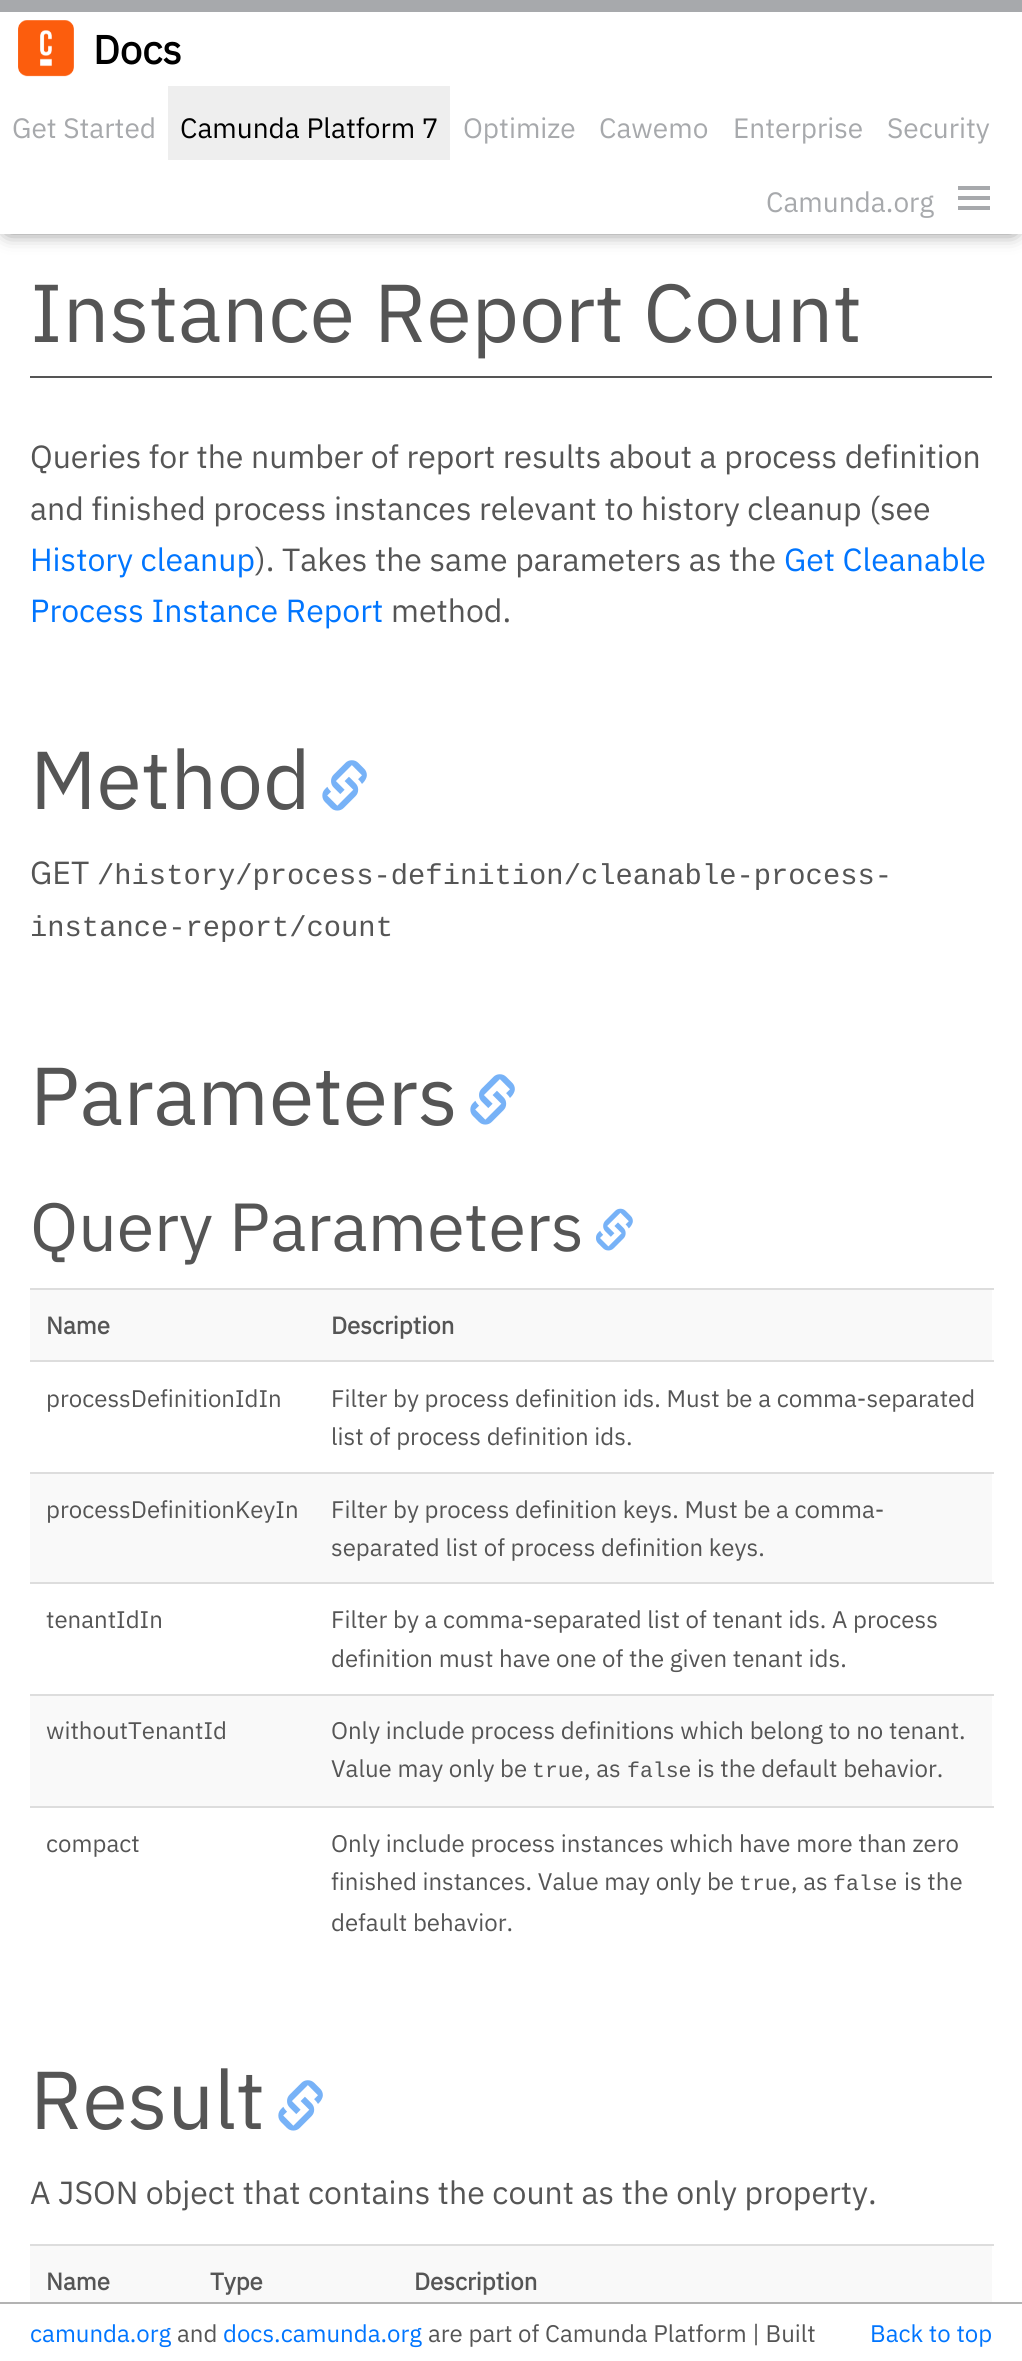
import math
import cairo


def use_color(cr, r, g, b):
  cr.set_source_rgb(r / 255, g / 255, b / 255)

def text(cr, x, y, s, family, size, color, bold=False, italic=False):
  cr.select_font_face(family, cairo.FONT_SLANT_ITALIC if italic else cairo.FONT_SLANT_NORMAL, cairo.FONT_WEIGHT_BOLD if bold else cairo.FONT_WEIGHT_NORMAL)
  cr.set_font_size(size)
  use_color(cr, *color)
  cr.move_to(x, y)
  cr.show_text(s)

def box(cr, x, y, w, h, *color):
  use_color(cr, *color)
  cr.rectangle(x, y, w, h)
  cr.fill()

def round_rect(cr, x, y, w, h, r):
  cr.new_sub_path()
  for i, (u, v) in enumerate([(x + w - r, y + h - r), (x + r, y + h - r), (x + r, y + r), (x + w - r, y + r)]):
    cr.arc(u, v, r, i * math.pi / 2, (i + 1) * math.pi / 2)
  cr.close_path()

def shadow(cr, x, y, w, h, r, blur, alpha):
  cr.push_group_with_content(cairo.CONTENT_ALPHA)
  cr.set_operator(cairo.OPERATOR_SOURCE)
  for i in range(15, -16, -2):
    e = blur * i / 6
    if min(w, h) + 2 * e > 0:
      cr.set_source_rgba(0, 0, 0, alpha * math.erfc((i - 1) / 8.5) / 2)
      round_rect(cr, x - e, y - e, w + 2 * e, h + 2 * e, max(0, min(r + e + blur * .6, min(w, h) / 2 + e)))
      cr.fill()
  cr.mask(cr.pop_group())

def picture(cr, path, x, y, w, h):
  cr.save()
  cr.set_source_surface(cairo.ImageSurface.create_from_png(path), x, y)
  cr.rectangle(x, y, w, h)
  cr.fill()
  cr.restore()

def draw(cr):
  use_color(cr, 255, 255, 255)
  cr.paint()
  use_color(cr, 85, 85, 85)
  shadow(cr, 8, 12, 1006, 218, 0, 10, 1)
  box(cr, 0, 12, 1022, 222, 255, 255, 255)
  box(cr, 0, 0, 1022, 12, 167, 169, 172)
  picture(cr, "img_01.png", 18, 20, 56, 57)
  box(cr, 168, 86, 282, 74, 238, 238, 238)
  box(cr, 958, 186, 32, 4, 167, 169, 172)
  box(cr, 958, 196, 32, 4, 167, 169, 172)
  box(cr, 958, 206, 32, 4, 167, 169, 172)
  box(cr, 30, 376, 962, 2, 85, 85, 85)
  picture(cr, "img_02.png", 322, 760, 45, 51)
  picture(cr, "img_02.png", 470, 1074, 45, 51)
  picture(cr, "img_03.png", 596, 1208, 37, 43)
  box(cr, 30, 1290, 962, 70, 249, 249, 249)
  box(cr, 30, 1288, 964, 2, 221, 221, 221)
  box(cr, 30, 1360, 964, 2, 221, 221, 221)
  box(cr, 30, 1474, 962, 108, 249, 249, 249)
  box(cr, 30, 1472, 964, 2, 221, 221, 221)
  box(cr, 30, 1582, 964, 2, 221, 221, 221)
  box(cr, 30, 1696, 962, 110, 249, 249, 249)
  box(cr, 30, 1694, 964, 2, 221, 221, 221)
  box(cr, 30, 1806, 964, 2, 221, 221, 221)
  picture(cr, "img_02.png", 278, 2080, 45, 51)
  box(cr, 30, 2246, 962, 56, 249, 249, 249)
  box(cr, 30, 2244, 964, 2, 221, 221, 221)
  box(cr, 0, 2302, 1022, 2, 179, 179, 179)
  text(cr, 93, 64, "Docs", "IBM Plex Sans", 40, (0, 0, 0), bold=True)
  text(cr, 12, 138, "Get Started", "IBM Plex Sans", 28, (167, 169, 172))
  text(cr, 180, 138, "Camunda Platform 7", "IBM Plex Sans", 28, (0, 0, 0))
  text(cr, 463, 138, "Optimize", "IBM Plex Sans", 28, (167, 169, 172))
  text(cr, 599, 138, "Cawemo", "IBM Plex Sans", 28, (167, 169, 172))
  text(cr, 733, 138, "Enterprise", "IBM Plex Sans", 28, (167, 169, 172))
  text(cr, 887, 138, "Security", "IBM Plex Sans", 28, (167, 169, 172))
  text(cr, 766, 212, "Camunda.org", "IBM Plex Sans", 28, (167, 169, 172))
  text(cr, 30, 342, "Instance Report Count", "IBM Plex Sans", 82, (85, 85, 85))
  text(cr, 30, 468, "Queries for the number of report results about a process definition", "IBM Plex Sans", 32, (85, 85, 85))
  text(cr, 30, 520, "and finished process instances relevant to history cleanup (see", "IBM Plex Sans", 32, (85, 85, 85))
  text(cr, 30, 571, "History cleanup", "IBM Plex Sans", 32, (0, 117, 255))
  text(cr, 255, 571, "). Takes the same parameters as the", "IBM Plex Sans", 32, (85, 85, 85))
  text(cr, 784, 571, "Get Cleanable", "IBM Plex Sans", 32, (0, 117, 255))
  text(cr, 30, 622, "Process Instance Report", "IBM Plex Sans", 32, (0, 117, 255))
  text(cr, 391, 622, "method.", "IBM Plex Sans", 32, (85, 85, 85))
  text(cr, 30, 809, "Method", "IBM Plex Sans", 82, (85, 85, 85))
  text(cr, 30, 884, "GET", "IBM Plex Sans", 32, (85, 85, 85))
  text(cr, 97, 884, "/history/process-definition/cleanable-process-", "Liberation Mono", 28.8, (85, 85, 85))
  text(cr, 30, 936, "instance-report/count", "Liberation Mono", 28.8, (85, 85, 85))
  text(cr, 30, 1125, "Parameters", "IBM Plex Sans", 82, (85, 85, 85))
  text(cr, 30, 1251, "Query Parameters", "IBM Plex Sans", 68, (85, 85, 85))
  text(cr, 46, 1334, "Name", "IBM Plex Sans", 24, (85, 85, 85), bold=True)
  text(cr, 331, 1334, "Description", "IBM Plex Sans", 24, (85, 85, 85), bold=True)
  text(cr, 46, 1407, "processDefinitionIdIn", "IBM Plex Sans", 24, (85, 85, 85))
  text(cr, 331, 1407, "Filter by process definition ids. Must be a comma-separated", "IBM Plex Sans", 24, (85, 85, 85))
  text(cr, 331, 1445, "list of process definition ids.", "IBM Plex Sans", 24, (85, 85, 85))
  text(cr, 46, 1518, "processDefinitionKeyIn", "IBM Plex Sans", 24, (85, 85, 85))
  text(cr, 331, 1518, "Filter by process definition keys. Must be a comma-", "IBM Plex Sans", 24, (85, 85, 85))
  text(cr, 331, 1556, "separated list of process definition keys.", "IBM Plex Sans", 24, (85, 85, 85))
  text(cr, 46, 1628, "tenantIdIn", "IBM Plex Sans", 24, (85, 85, 85))
  text(cr, 331, 1628, "Filter by a comma-separated list of tenant ids. A process", "IBM Plex Sans", 24, (85, 85, 85))
  text(cr, 331, 1667, "definition must have one of the given tenant ids.", "IBM Plex Sans", 24, (85, 85, 85))
  text(cr, 46, 1739, "withoutTenantId", "IBM Plex Sans", 24, (85, 85, 85))
  text(cr, 331, 1739, "Only include process definitions which belong to no tenant.", "IBM Plex Sans", 24, (85, 85, 85))
  text(cr, 331, 1777, "Value may only be", "IBM Plex Sans", 24, (85, 85, 85))
  text(cr, 532, 1777, "true", "Liberation Mono", 21.5, (85, 85, 85))
  text(cr, 584, 1777, ", as", "IBM Plex Sans", 24, (85, 85, 85))
  text(cr, 627, 1777, "false", "Liberation Mono", 21.5, (85, 85, 85))
  text(cr, 697, 1777, "is the default behavior.", "IBM Plex Sans", 24, (85, 85, 85))
  text(cr, 46, 1852, "compact", "IBM Plex Sans", 24, (85, 85, 85))
  text(cr, 331, 1852, "Only include process instances which have more than zero", "IBM Plex Sans", 24, (85, 85, 85))
  text(cr, 331, 1890, "finished instances. Value may only be", "IBM Plex Sans", 24, (85, 85, 85))
  text(cr, 739, 1890, "true", "Liberation Mono", 21.5, (85, 85, 85))
  text(cr, 791, 1890, ", as", "IBM Plex Sans", 24, (85, 85, 85))
  text(cr, 833, 1890, "false", "Liberation Mono", 21.5, (85, 85, 85))
  text(cr, 904, 1890, "is the", "IBM Plex Sans", 24, (85, 85, 85))
  text(cr, 331, 1931, "default behavior.", "IBM Plex Sans", 24, (85, 85, 85))
  text(cr, 30, 2129, "Result", "IBM Plex Sans", 82, (85, 85, 85))
  text(cr, 30, 2204, "A JSON object that contains the count as the only property.", "IBM Plex Sans", 32, (85, 85, 85))
  text(cr, 46, 2290, "Name", "IBM Plex Sans", 24, (85, 85, 85), bold=True)
  text(cr, 210, 2290, "Type", "IBM Plex Sans", 24, (85, 85, 85), bold=True)
  text(cr, 414, 2290, "Description", "IBM Plex Sans", 24, (85, 85, 85), bold=True)
  text(cr, 30, 2342, "camunda.org", "IBM Plex Sans", 24, (0, 117, 255))
  text(cr, 177, 2342, "and", "IBM Plex Sans", 24, (85, 85, 85))
  text(cr, 223, 2342, "docs.camunda.org", "IBM Plex Sans", 24, (0, 117, 255))
  text(cr, 428, 2342, "are part of Camunda Platform | Built", "IBM Plex Sans", 24, (85, 85, 85))
  text(cr, 870, 2342, "Back to top", "IBM Plex Sans", 24, (0, 117, 255))


surface = cairo.ImageSurface(cairo.FORMAT_RGB24, 1022, 2361)
cr = cairo.Context(surface)
options = cairo.FontOptions()
options.set_hint_metrics(cairo.HINT_METRICS_OFF)
options.set_hint_style(cairo.HINT_STYLE_NONE)
cr.set_font_options(options)
cr.set_miter_limit(4)
draw(cr)
surface.write_to_png("out.png")
